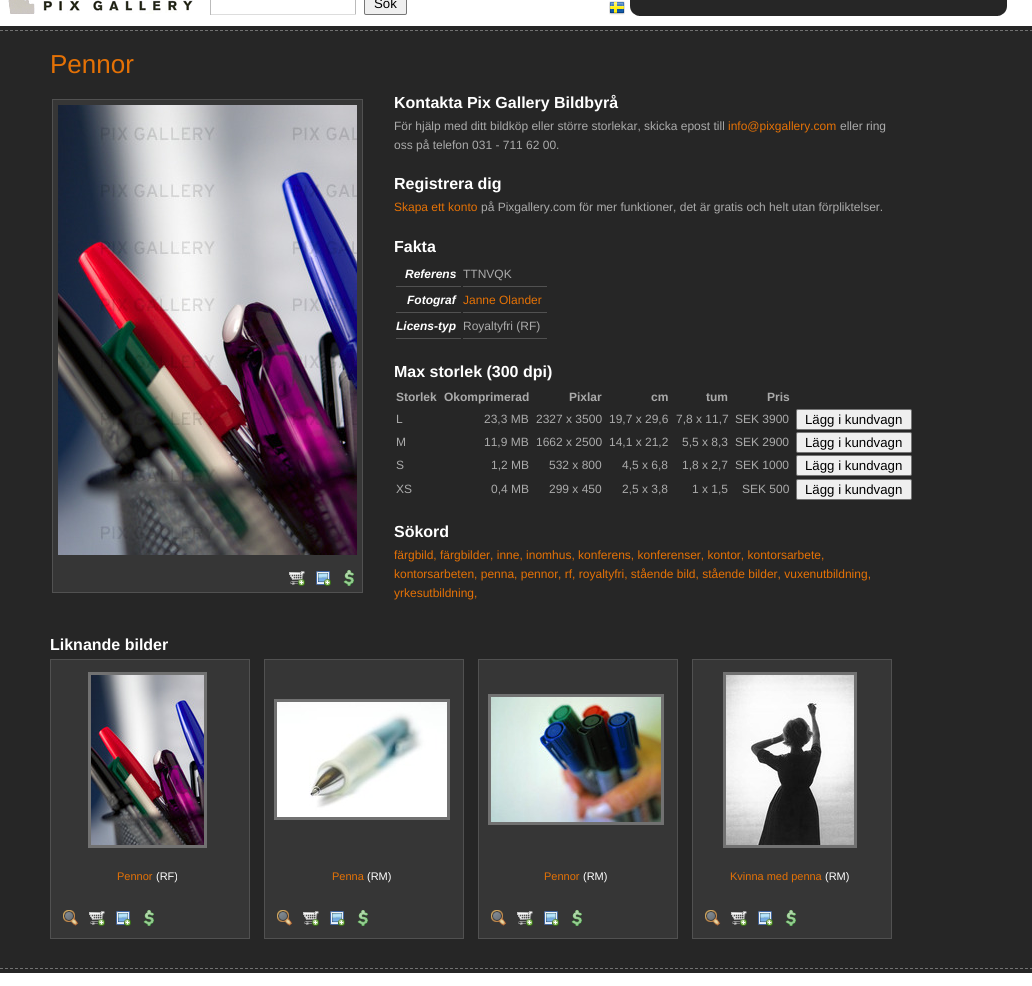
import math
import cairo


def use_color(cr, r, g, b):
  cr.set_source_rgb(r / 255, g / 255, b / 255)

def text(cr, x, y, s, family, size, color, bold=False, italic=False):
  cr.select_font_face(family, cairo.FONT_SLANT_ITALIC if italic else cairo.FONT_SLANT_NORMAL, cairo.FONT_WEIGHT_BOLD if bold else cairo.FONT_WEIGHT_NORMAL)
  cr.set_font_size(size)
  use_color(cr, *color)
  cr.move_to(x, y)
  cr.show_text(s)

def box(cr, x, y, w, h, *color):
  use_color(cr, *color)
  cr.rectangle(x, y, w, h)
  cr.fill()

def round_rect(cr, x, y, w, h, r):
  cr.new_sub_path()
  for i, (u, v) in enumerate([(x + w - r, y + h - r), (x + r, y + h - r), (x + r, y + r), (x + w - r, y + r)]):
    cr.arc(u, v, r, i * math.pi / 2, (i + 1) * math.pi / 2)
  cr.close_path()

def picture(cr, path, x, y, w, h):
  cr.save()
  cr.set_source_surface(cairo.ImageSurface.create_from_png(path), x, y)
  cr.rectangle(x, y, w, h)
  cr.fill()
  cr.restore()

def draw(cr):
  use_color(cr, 255, 255, 255)
  cr.paint()
  picture(cr, "img_01.png", 8, 0, 185, 14)
  box(cr, 355, 0, 1, 15, 187, 187, 187)
  box(cr, 210, 14, 146, 1, 221, 221, 221)
  box(cr, 210, 0, 1, 15, 187, 187, 187)
  use_color(cr, 239, 239, 239)
  round_rect(cr, 364.5, -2.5, 42, 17, 1.5)
  cr.fill_preserve()
  use_color(cr, 118, 118, 118)
  cr.set_line_width(1)
  cr.stroke()
  picture(cr, "img_02.png", 609, 1, 16, 14)
  box(cr, 630, 0, 377, 16, 38, 38, 38)
  picture(cr, "img_03.png", 630, 6, 9, 10)
  picture(cr, "img_04.png", 998, 6, 9, 10)
  box(cr, 0, 26, 1032, 947, 38, 38, 38)
  picture(cr, "img_05.png", 0, 30, 1032, 1)
  picture(cr, "img_05.png", 0, 968, 1032, 1)
  use_color(cr, 54, 54, 54)
  cr.rectangle(52.5, 99.5, 310, 493)
  cr.fill_preserve()
  use_color(cr, 81, 81, 81)
  cr.stroke()
  picture(cr, "img_06.png", 58, 105, 299, 450)
  picture(cr, "img_07.png", 289, 571, 16, 15)
  picture(cr, "img_08.png", 316, 571, 15, 15)
  picture(cr, "img_09.png", 343, 570, 11, 16)
  box(cr, 396, 286, 65, 1, 81, 81, 81)
  box(cr, 463, 286, 84, 1, 81, 81, 81)
  box(cr, 396, 312, 65, 1, 81, 81, 81)
  box(cr, 463, 312, 84, 1, 81, 81, 81)
  box(cr, 396, 338, 65, 1, 81, 81, 81)
  box(cr, 463, 338, 84, 1, 81, 81, 81)
  use_color(cr, 239, 239, 239)
  round_rect(cr, 796.5, 409.5, 115, 20, 1.5)
  cr.fill_preserve()
  use_color(cr, 118, 118, 118)
  cr.stroke()
  use_color(cr, 239, 239, 239)
  round_rect(cr, 796.5, 432.5, 115, 20, 1.5)
  cr.fill_preserve()
  use_color(cr, 118, 118, 118)
  cr.stroke()
  use_color(cr, 239, 239, 239)
  round_rect(cr, 796.5, 455.5, 115, 20, 1.5)
  cr.fill_preserve()
  use_color(cr, 118, 118, 118)
  cr.stroke()
  use_color(cr, 239, 239, 239)
  round_rect(cr, 796.5, 479.5, 115, 20, 1.5)
  cr.fill_preserve()
  use_color(cr, 118, 118, 118)
  cr.stroke()
  use_color(cr, 54, 54, 54)
  cr.rectangle(50.5, 659.5, 199, 279)
  cr.fill_preserve()
  use_color(cr, 81, 81, 81)
  cr.stroke()
  cr.rectangle(89.5, 673.5, 116, 173)
  use_color(cr, 113, 113, 113)
  cr.set_line_width(3)
  cr.stroke()
  picture(cr, "img_10.png", 91, 675, 113, 170)
  picture(cr, "img_11.png", 63, 910, 16, 16)
  picture(cr, "img_07.png", 89, 911, 16, 15)
  picture(cr, "img_08.png", 116, 911, 15, 15)
  picture(cr, "img_09.png", 143, 910, 11, 16)
  use_color(cr, 54, 54, 54)
  cr.rectangle(264.5, 659.5, 199, 279)
  cr.fill_preserve()
  use_color(cr, 81, 81, 81)
  cr.set_line_width(1)
  cr.stroke()
  cr.rectangle(275.5, 700.5, 173, 118)
  use_color(cr, 113, 113, 113)
  cr.set_line_width(3)
  cr.stroke()
  picture(cr, "img_12.png", 277, 702, 170, 115)
  picture(cr, "img_11.png", 277, 910, 16, 16)
  picture(cr, "img_07.png", 303, 911, 16, 15)
  picture(cr, "img_08.png", 330, 911, 15, 15)
  picture(cr, "img_09.png", 357, 910, 11, 16)
  use_color(cr, 54, 54, 54)
  cr.rectangle(478.5, 659.5, 199, 279)
  cr.fill_preserve()
  use_color(cr, 81, 81, 81)
  cr.set_line_width(1)
  cr.stroke()
  cr.rectangle(489.5, 695.5, 173, 128)
  use_color(cr, 113, 113, 113)
  cr.set_line_width(3)
  cr.stroke()
  picture(cr, "img_13.png", 491, 697, 170, 125)
  picture(cr, "img_11.png", 491, 910, 16, 16)
  picture(cr, "img_07.png", 517, 911, 16, 15)
  picture(cr, "img_08.png", 544, 911, 15, 15)
  picture(cr, "img_09.png", 571, 910, 11, 16)
  use_color(cr, 54, 54, 54)
  cr.rectangle(692.5, 659.5, 199, 279)
  cr.fill_preserve()
  use_color(cr, 81, 81, 81)
  cr.set_line_width(1)
  cr.stroke()
  cr.rectangle(724.5, 673.5, 131, 173)
  use_color(cr, 113, 113, 113)
  cr.set_line_width(3)
  cr.stroke()
  picture(cr, "img_14.png", 726, 675, 128, 170)
  picture(cr, "img_11.png", 705, 910, 16, 16)
  picture(cr, "img_07.png", 731, 911, 16, 15)
  picture(cr, "img_08.png", 758, 911, 15, 15)
  picture(cr, "img_09.png", 785, 910, 11, 16)
  text(cr, 374, 8, "Sök", "Liberation Sans", 13.25, (0, 0, 0))
  text(cr, 50, 73, "Pennor", "Liberation Sans", 26, (228, 113, 5))
  text(cr, 394, 108, "Kontakta Pix Gallery Bildbyrå", "Liberation Sans", 16, (255, 255, 255), bold=True)
  text(cr, 394, 130, "För hjälp med ditt bildköp eller större storlekar, skicka epost till", "Liberation Sans", 12, (170, 170, 170))
  text(cr, 728, 130, "info@pixgallery.com", "Liberation Sans", 12, (228, 113, 5))
  text(cr, 840, 130, "eller ring", "Liberation Sans", 12, (170, 170, 170))
  text(cr, 394, 149, "oss på telefon 031 - 711 62 00.", "Liberation Sans", 12, (170, 170, 170))
  text(cr, 394, 189, "Registrera dig", "Liberation Sans", 16, (255, 255, 255), bold=True)
  text(cr, 394, 211, "Skapa ett konto", "Liberation Sans", 12, (228, 113, 5))
  text(cr, 481, 211, "på Pixgallery.com för mer funktioner, det är gratis och helt utan förpliktelser.", "Liberation Sans", 12, (170, 170, 170))
  text(cr, 394, 252, "Fakta", "Liberation Sans", 16, (255, 255, 255), bold=True)
  text(cr, 405, 278, "Referens", "Liberation Sans", 12, (255, 255, 255), bold=True, italic=True)
  text(cr, 463, 278, "TTNVQK", "Liberation Sans", 12, (170, 170, 170))
  text(cr, 407, 304, "Fotograf", "Liberation Sans", 12, (255, 255, 255), bold=True, italic=True)
  text(cr, 463, 304, "Janne Olander", "Liberation Sans", 12, (228, 113, 5))
  text(cr, 396, 330, "Licens-typ", "Liberation Sans", 12, (255, 255, 255), bold=True, italic=True)
  text(cr, 463, 330, "Royaltyfri (RF)", "Liberation Sans", 12, (170, 170, 170))
  text(cr, 394, 377, "Max storlek (300 dpi)", "Liberation Sans", 16, (255, 255, 255), bold=True)
  text(cr, 396, 401, "Storlek", "Liberation Sans", 12, (170, 170, 170), bold=True)
  text(cr, 444, 401, "Okomprimerad", "Liberation Sans", 12, (170, 170, 170), bold=True)
  text(cr, 569, 401, "Pixlar", "Liberation Sans", 12, (170, 170, 170), bold=True)
  text(cr, 651, 401, "cm", "Liberation Sans", 12, (170, 170, 170), bold=True)
  text(cr, 706, 401, "tum", "Liberation Sans", 12, (170, 170, 170), bold=True)
  text(cr, 767, 401, "Pris", "Liberation Sans", 12, (170, 170, 170), bold=True)
  text(cr, 396, 423, "L", "Liberation Sans", 12, (170, 170, 170))
  text(cr, 484, 423, "23,3 MB", "Liberation Sans", 12, (170, 170, 170))
  text(cr, 536, 423, "2327 x 3500", "Liberation Sans", 12, (170, 170, 170))
  text(cr, 609, 423, "19,7 x 29,6", "Liberation Sans", 12, (170, 170, 170))
  text(cr, 676, 423, "7,8 x 11,7", "Liberation Sans", 12, (170, 170, 170))
  text(cr, 735, 423, "SEK 3900", "Liberation Sans", 12, (170, 170, 170))
  text(cr, 805, 424, "Lägg i kundvagn", "Liberation Sans", 13.25, (0, 0, 0))
  text(cr, 396, 446, "M", "Liberation Sans", 12, (170, 170, 170))
  text(cr, 484, 446, "11,9 MB", "Liberation Sans", 12, (170, 170, 170))
  text(cr, 536, 446, "1662 x 2500", "Liberation Sans", 12, (170, 170, 170))
  text(cr, 609, 446, "14,1 x 21,2", "Liberation Sans", 12, (170, 170, 170))
  text(cr, 682, 446, "5,5 x 8,3", "Liberation Sans", 12, (170, 170, 170))
  text(cr, 735, 446, "SEK 2900", "Liberation Sans", 12, (170, 170, 170))
  text(cr, 805, 447, "Lägg i kundvagn", "Liberation Sans", 13.25, (0, 0, 0))
  text(cr, 396, 469, "S", "Liberation Sans", 12, (170, 170, 170))
  text(cr, 491, 469, "1,2 MB", "Liberation Sans", 12, (170, 170, 170))
  text(cr, 549, 469, "532 x 800", "Liberation Sans", 12, (170, 170, 170))
  text(cr, 622, 469, "4,5 x 6,8", "Liberation Sans", 12, (170, 170, 170))
  text(cr, 682, 469, "1,8 x 2,7", "Liberation Sans", 12, (170, 170, 170))
  text(cr, 735, 469, "SEK 1000", "Liberation Sans", 12, (170, 170, 170))
  text(cr, 805, 470, "Lägg i kundvagn", "Liberation Sans", 13.25, (0, 0, 0))
  text(cr, 396, 493, "XS", "Liberation Sans", 12, (170, 170, 170))
  text(cr, 491, 493, "0,4 MB", "Liberation Sans", 12, (170, 170, 170))
  text(cr, 549, 493, "299 x 450", "Liberation Sans", 12, (170, 170, 170))
  text(cr, 622, 493, "2,5 x 3,8", "Liberation Sans", 12, (170, 170, 170))
  text(cr, 692, 493, "1 x 1,5", "Liberation Sans", 12, (170, 170, 170))
  text(cr, 742, 493, "SEK 500", "Liberation Sans", 12, (170, 170, 170))
  text(cr, 805, 494, "Lägg i kundvagn", "Liberation Sans", 13.25, (0, 0, 0))
  text(cr, 394, 537, "Sökord", "Liberation Sans", 16, (255, 255, 255), bold=True)
  text(cr, 394, 559, "färgbild, färgbilder, inne, inomhus, konferens, konferenser, kontor, kontorsarbete,", "Liberation Sans", 12, (228, 113, 5))
  text(cr, 394, 578, "kontorsarbeten, penna, pennor, rf, royaltyfri, stående bild, stående bilder, vuxenutbildning,", "Liberation Sans", 12, (228, 113, 5))
  text(cr, 394, 597, "yrkesutbildning,", "Liberation Sans", 12, (228, 113, 5))
  text(cr, 50, 650, "Liknande bilder", "Liberation Sans", 16, (255, 255, 255), bold=True)
  text(cr, 117, 880, "Pennor", "Liberation Sans", 11, (228, 113, 5))
  text(cr, 156, 880, "(RF)", "Liberation Sans", 11, (255, 255, 255))
  text(cr, 332, 880, "Penna", "Liberation Sans", 11, (228, 113, 5))
  text(cr, 367, 880, "(RM)", "Liberation Sans", 11, (255, 255, 255))
  text(cr, 544, 880, "Pennor", "Liberation Sans", 11, (228, 113, 5))
  text(cr, 583, 880, "(RM)", "Liberation Sans", 11, (255, 255, 255))
  text(cr, 730, 880, "Kvinna med penna", "Liberation Sans", 11, (228, 113, 5))
  text(cr, 825, 880, "(RM)", "Liberation Sans", 11, (255, 255, 255))


surface = cairo.ImageSurface(cairo.FORMAT_RGB24, 1032, 986)
cr = cairo.Context(surface)
options = cairo.FontOptions()
options.set_hint_metrics(cairo.HINT_METRICS_OFF)
options.set_hint_style(cairo.HINT_STYLE_NONE)
cr.set_font_options(options)
cr.set_miter_limit(4)
draw(cr)
surface.write_to_png("out.png")
